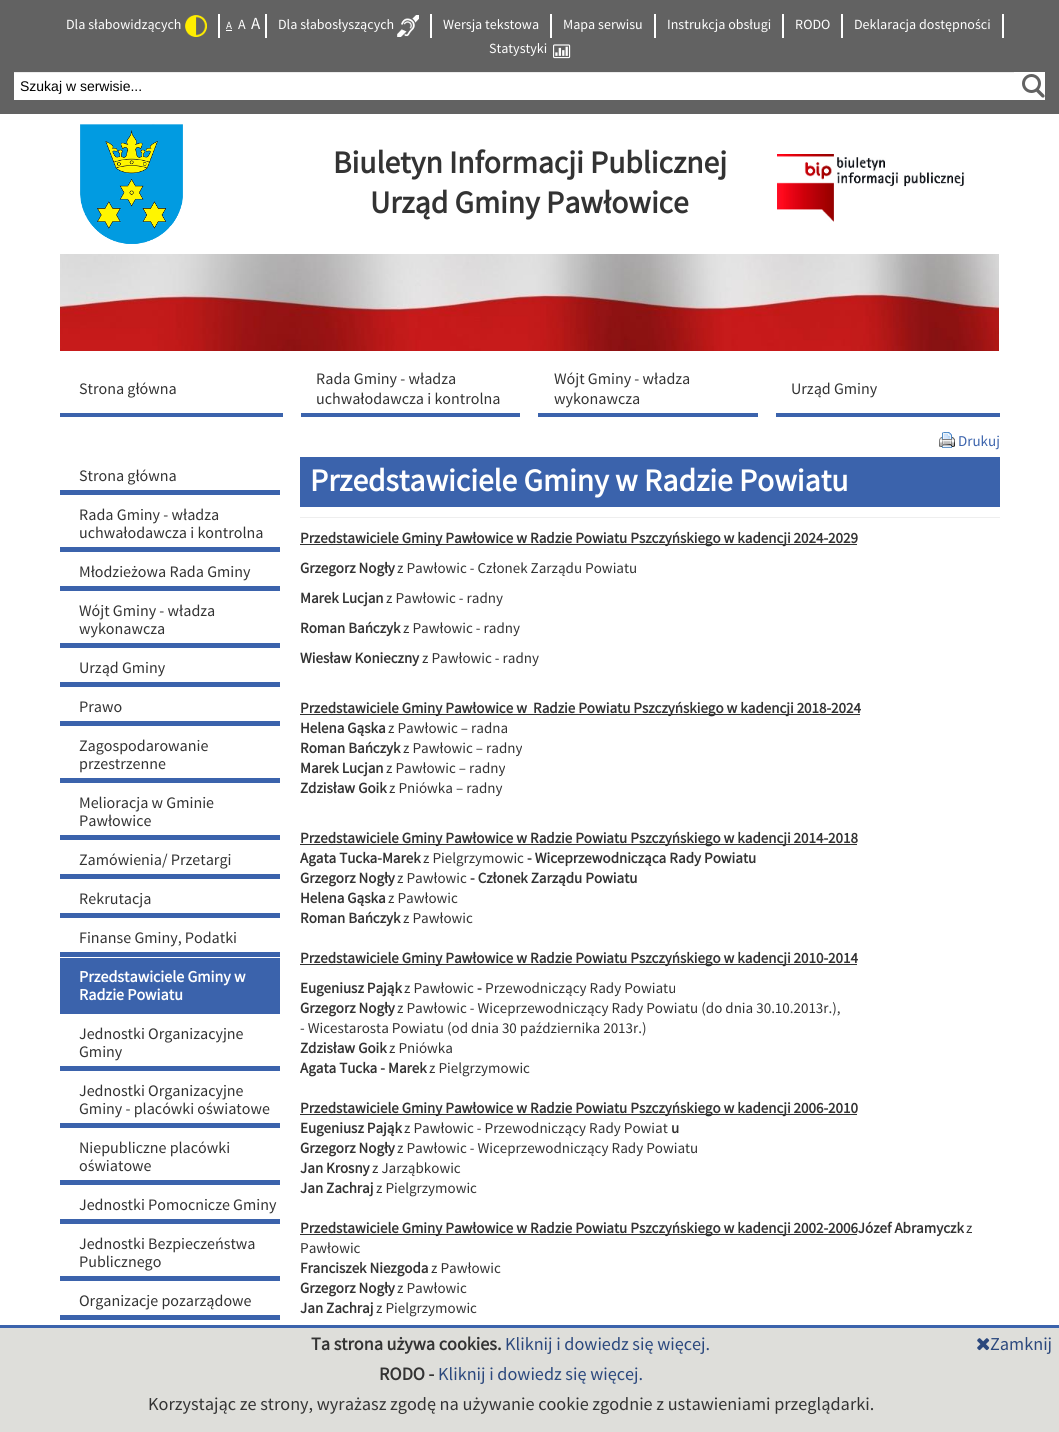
import math
import cairo


def use_color(cr, r, g, b):
  cr.set_source_rgb(r / 255, g / 255, b / 255)

def text(cr, x, y, s, family, size, color, bold=False, italic=False):
  cr.select_font_face(family, cairo.FONT_SLANT_ITALIC if italic else cairo.FONT_SLANT_NORMAL, cairo.FONT_WEIGHT_BOLD if bold else cairo.FONT_WEIGHT_NORMAL)
  cr.set_font_size(size)
  use_color(cr, *color)
  cr.move_to(x, y)
  cr.show_text(s)

def box(cr, x, y, w, h, *color):
  use_color(cr, *color)
  cr.rectangle(x, y, w, h)
  cr.fill()

def picture(cr, path, x, y, w, h):
  cr.save()
  cr.set_source_surface(cairo.ImageSurface.create_from_png(path), x, y)
  cr.rectangle(x, y, w, h)
  cr.fill()
  cr.restore()

def draw(cr):
  use_color(cr, 255, 255, 255)
  cr.paint()
  box(cr, 0, 0, 1059, 114, 98, 98, 98)
  box(cr, 218, 14, 2, 24, 255, 255, 255)
  picture(cr, "img_01.png", 185, 15, 22, 22)
  box(cr, 265, 14, 2, 24, 255, 255, 255)
  box(cr, 226, 30, 6, 1, 255, 255, 255)
  box(cr, 430, 14, 2, 24, 255, 255, 255)
  picture(cr, "img_02.png", 397, 15, 22, 22)
  box(cr, 550, 14, 2, 24, 255, 255, 255)
  box(cr, 654, 14, 2, 24, 255, 255, 255)
  box(cr, 782, 14, 2, 24, 255, 255, 255)
  box(cr, 841, 14, 2, 24, 255, 255, 255)
  box(cr, 1002, 14, 2, 24, 255, 255, 255)
  picture(cr, "img_03.png", 553, 44, 18, 15)
  box(cr, 14, 73, 1000, 27, 255, 255, 255)
  box(cr, 14, 72, 1002, 1, 236, 236, 236)
  box(cr, 1014, 72, 31, 28, 255, 255, 255)
  picture(cr, "img_04.png", 1022, 74, 23, 24)
  picture(cr, "img_05.png", 80, 124, 103, 120)
  picture(cr, "img_06.png", 777, 154, 188, 68)
  picture(cr, "img_07.png", 60, 254, 939, 97)
  box(cr, 60, 413, 223, 4, 59, 99, 172)
  box(cr, 301, 413, 219, 4, 59, 99, 172)
  box(cr, 538, 413, 220, 4, 59, 99, 172)
  box(cr, 776, 413, 224, 4, 59, 99, 172)
  box(cr, 60, 490, 220, 5, 59, 99, 172)
  box(cr, 60, 547, 220, 5, 59, 99, 172)
  box(cr, 60, 586, 220, 5, 59, 99, 172)
  box(cr, 60, 643, 220, 5, 59, 99, 172)
  box(cr, 60, 682, 220, 5, 59, 99, 172)
  box(cr, 60, 721, 220, 5, 59, 99, 172)
  box(cr, 60, 778, 220, 5, 59, 99, 172)
  box(cr, 60, 835, 220, 5, 59, 99, 172)
  box(cr, 60, 874, 220, 5, 59, 99, 172)
  box(cr, 60, 913, 220, 5, 59, 99, 172)
  box(cr, 60, 952, 220, 5, 59, 99, 172)
  box(cr, 60, 958, 220, 56, 59, 99, 172)
  box(cr, 60, 1066, 220, 5, 59, 99, 172)
  box(cr, 60, 1123, 220, 5, 59, 99, 172)
  box(cr, 60, 1180, 220, 5, 59, 99, 172)
  box(cr, 60, 1219, 220, 5, 59, 99, 172)
  box(cr, 60, 1276, 220, 5, 59, 99, 172)
  box(cr, 60, 1315, 220, 5, 59, 99, 172)
  picture(cr, "img_08.png", 939, 432, 16, 16)
  box(cr, 300, 457, 700, 50, 59, 99, 172)
  box(cr, 300, 517, 700, 1, 238, 238, 238)
  box(cr, 300, 544, 557, 1, 51, 51, 51)
  box(cr, 300, 714, 560, 1, 51, 51, 51)
  box(cr, 300, 844, 557, 1, 51, 51, 51)
  box(cr, 300, 964, 557, 1, 51, 51, 51)
  box(cr, 300, 1114, 557, 1, 51, 51, 51)
  box(cr, 300, 1234, 557, 1, 51, 51, 51)
  box(cr, 0, 1328, 1059, 104, 222, 222, 218)
  box(cr, 0, 1325, 1059, 3, 59, 99, 172)
  picture(cr, "img_09.png", 977, 1338, 13, 13)
  text(cr, 66, 29, "Dla słabowidzących", "Source Sans Pro", 14, (255, 255, 255))
  text(cr, 226, 29, "A", "Source Sans Pro", 11, (255, 255, 255))
  text(cr, 238, 29, "A", "Source Sans Pro", 14, (255, 255, 255))
  text(cr, 251, 29, "A", "Source Sans Pro", 17, (255, 255, 255))
  text(cr, 278, 29, "Dla słabosłyszących", "Source Sans Pro", 14, (255, 255, 255))
  text(cr, 443, 29, "Wersja tekstowa", "Source Sans Pro", 14, (255, 255, 255))
  text(cr, 563, 29, "Mapa serwisu", "Source Sans Pro", 14, (255, 255, 255))
  text(cr, 667, 29, "Instrukcja obsługi", "Source Sans Pro", 14, (255, 255, 255))
  text(cr, 795, 29, "RODO", "Source Sans Pro", 14, (255, 255, 255))
  text(cr, 854, 29, "Deklaracja dostępności", "Source Sans Pro", 14, (255, 255, 255))
  text(cr, 489, 53, "Statystyki", "Source Sans Pro", 14, (255, 255, 255))
  text(cr, 20, 91, "Szukaj w serwisie...", "Liberation Sans", 14, (0, 0, 0))
  text(cr, 333, 173, "Biuletyn Informacji Publicznej", "Source Sans Pro", 31.5, (51, 51, 51), bold=True)
  text(cr, 370, 213, "Urząd Gminy Pawłowice", "Source Sans Pro", 31.5, (51, 51, 51), bold=True)
  text(cr, 79, 394, "Strona główna", "Source Sans Pro", 16, (51, 51, 51))
  text(cr, 316, 384, "Rada Gminy - władza", "Source Sans Pro", 16, (51, 51, 51))
  text(cr, 316, 404, "uchwałodawcza i kontrolna", "Source Sans Pro", 16, (51, 51, 51))
  text(cr, 554, 384, "Wójt Gminy - władza", "Source Sans Pro", 16, (51, 51, 51))
  text(cr, 554, 404, "wykonawcza", "Source Sans Pro", 16, (51, 51, 51))
  text(cr, 791, 394, "Urząd Gminy", "Source Sans Pro", 16, (51, 51, 51))
  text(cr, 79, 481, "Strona główna", "Source Sans Pro", 16, (51, 51, 51))
  text(cr, 79, 520, "Rada Gminy - władza", "Source Sans Pro", 16, (51, 51, 51))
  text(cr, 79, 538, "uchwałodawcza i kontrolna", "Source Sans Pro", 16, (51, 51, 51))
  text(cr, 79, 577, "Młodzieżowa Rada Gminy", "Source Sans Pro", 16, (51, 51, 51))
  text(cr, 79, 616, "Wójt Gminy - władza", "Source Sans Pro", 16, (51, 51, 51))
  text(cr, 79, 634, "wykonawcza", "Source Sans Pro", 16, (51, 51, 51))
  text(cr, 79, 673, "Urząd Gminy", "Source Sans Pro", 16, (51, 51, 51))
  text(cr, 79, 712, "Prawo", "Source Sans Pro", 16, (51, 51, 51))
  text(cr, 79, 751, "Zagospodarowanie", "Source Sans Pro", 16, (51, 51, 51))
  text(cr, 79, 769, "przestrzenne", "Source Sans Pro", 16, (51, 51, 51))
  text(cr, 79, 808, "Melioracja w Gminie", "Source Sans Pro", 16, (51, 51, 51))
  text(cr, 79, 826, "Pawłowice", "Source Sans Pro", 16, (51, 51, 51))
  text(cr, 79, 865, "Zamówienia/ Przetargi", "Source Sans Pro", 16, (51, 51, 51))
  text(cr, 79, 904, "Rekrutacja", "Source Sans Pro", 16, (51, 51, 51))
  text(cr, 79, 943, "Finanse Gminy, Podatki", "Source Sans Pro", 16, (51, 51, 51))
  text(cr, 79, 982, "Przedstawiciele Gminy w", "Source Sans Pro", 16, (255, 255, 255), bold=True)
  text(cr, 79, 1000, "Radzie Powiatu", "Source Sans Pro", 16, (255, 255, 255), bold=True)
  text(cr, 79, 1039, "Jednostki Organizacyjne", "Source Sans Pro", 16, (51, 51, 51))
  text(cr, 79, 1057, "Gminy", "Source Sans Pro", 16, (51, 51, 51))
  text(cr, 79, 1096, "Jednostki Organizacyjne", "Source Sans Pro", 16, (51, 51, 51))
  text(cr, 79, 1114, "Gminy - placówki oświatowe", "Source Sans Pro", 16, (51, 51, 51))
  text(cr, 79, 1153, "Niepubliczne placówki", "Source Sans Pro", 16, (51, 51, 51))
  text(cr, 79, 1171, "oświatowe", "Source Sans Pro", 16, (51, 51, 51))
  text(cr, 79, 1210, "Jednostki Pomocnicze Gminy", "Source Sans Pro", 16, (51, 51, 51))
  text(cr, 79, 1249, "Jednostki Bezpieczeństwa", "Source Sans Pro", 16, (51, 51, 51))
  text(cr, 79, 1267, "Publicznego", "Source Sans Pro", 16, (51, 51, 51))
  text(cr, 79, 1306, "Organizacje pozarządowe", "Source Sans Pro", 16, (51, 51, 51))
  text(cr, 958, 446, "Drukuj", "Source Sans Pro", 15, (59, 99, 172))
  text(cr, 310, 491, "Przedstawiciele Gminy w Radzie Powiatu", "Source Sans Pro", 31.5, (255, 255, 255), bold=True)
  text(cr, 300, 543, "Przedstawiciele Gminy Pawłowice w Radzie Powiatu Pszczyńskiego w kadencji 2024-2029", "Source Sans Pro", 15, (51, 51, 51), bold=True)
  text(cr, 300, 573, "Grzegorz Nogły", "Source Sans Pro", 15, (51, 51, 51), bold=True)
  text(cr, 397, 573, "z Pawłowic - Członek Zarządu Powiatu", "Source Sans Pro", 15, (51, 51, 51))
  text(cr, 300, 603, "Marek Lucjan", "Source Sans Pro", 15, (51, 51, 51), bold=True)
  text(cr, 386, 603, "z Pawłowic - radny", "Source Sans Pro", 15, (51, 51, 51))
  text(cr, 300, 633, "Roman Bańczyk", "Source Sans Pro", 15, (51, 51, 51), bold=True)
  text(cr, 403, 633, "z Pawłowic - radny", "Source Sans Pro", 15, (51, 51, 51))
  text(cr, 300, 663, "Wiesław Konieczny", "Source Sans Pro", 15, (51, 51, 51), bold=True)
  text(cr, 422, 663, "z Pawłowic - radny", "Source Sans Pro", 15, (51, 51, 51))
  text(cr, 300, 713, "Przedstawiciele Gminy Pawłowice w  Radzie Powiatu Pszczyńskiego w kadencji 2018-2024", "Source Sans Pro", 15, (51, 51, 51), bold=True)
  text(cr, 300, 733, "Helena Gąska", "Source Sans Pro", 15, (51, 51, 51), bold=True)
  text(cr, 388, 733, "z Pawłowic – radna", "Source Sans Pro", 15, (51, 51, 51))
  text(cr, 300, 753, "Roman Bańczyk", "Source Sans Pro", 15, (51, 51, 51), bold=True)
  text(cr, 403, 753, "z Pawłowic – radny", "Source Sans Pro", 15, (51, 51, 51))
  text(cr, 300, 773, "Marek Lucjan", "Source Sans Pro", 15, (51, 51, 51), bold=True)
  text(cr, 386, 773, "z Pawłowic – radny", "Source Sans Pro", 15, (51, 51, 51))
  text(cr, 300, 793, "Zdzisław Goik", "Source Sans Pro", 15, (51, 51, 51), bold=True)
  text(cr, 389, 793, "z Pniówka – radny", "Source Sans Pro", 15, (51, 51, 51))
  text(cr, 300, 843, "Przedstawiciele Gminy Pawłowice w Radzie Powiatu Pszczyńskiego w kadencji 2014-2018", "Source Sans Pro", 15, (51, 51, 51), bold=True)
  text(cr, 300, 863, "Agata Tucka-Marek", "Source Sans Pro", 15, (51, 51, 51), bold=True)
  text(cr, 423, 863, "z Pielgrzymowic", "Source Sans Pro", 15, (51, 51, 51))
  text(cr, 527, 863, "- Wiceprzewodnicząca Rady Powiatu", "Source Sans Pro", 15, (51, 51, 51), bold=True)
  text(cr, 300, 883, "Grzegorz Nogły", "Source Sans Pro", 15, (51, 51, 51), bold=True)
  text(cr, 397, 883, "z Pawłowic", "Source Sans Pro", 15, (51, 51, 51))
  text(cr, 470, 883, "- Członek Zarządu Powiatu", "Source Sans Pro", 15, (51, 51, 51), bold=True)
  text(cr, 300, 903, "Helena Gąska", "Source Sans Pro", 15, (51, 51, 51), bold=True)
  text(cr, 388, 903, "z Pawłowic", "Source Sans Pro", 15, (51, 51, 51))
  text(cr, 300, 923, "Roman Bańczyk", "Source Sans Pro", 15, (51, 51, 51), bold=True)
  text(cr, 403, 923, "z Pawłowic", "Source Sans Pro", 15, (51, 51, 51))
  text(cr, 300, 963, "Przedstawiciele Gminy Pawłowice w Radzie Powiatu Pszczyńskiego w kadencji 2010-2014", "Source Sans Pro", 15, (51, 51, 51), bold=True)
  text(cr, 300, 993, "Eugeniusz Pająk", "Source Sans Pro", 15, (51, 51, 51), bold=True)
  text(cr, 404, 993, "z Pawłowic", "Source Sans Pro", 15, (51, 51, 51))
  text(cr, 477, 993, "-", "Source Sans Pro", 15, (51, 51, 51), bold=True)
  text(cr, 485, 993, "Przewodniczący Rady Powiatu", "Source Sans Pro", 15, (51, 51, 51))
  text(cr, 300, 1013, "Grzegorz Nogły", "Source Sans Pro", 15, (51, 51, 51), bold=True)
  text(cr, 397, 1013, "z Pawłowic - Wiceprzewodniczący Rady Powiatu (do dnia 30.10.2013r.),", "Source Sans Pro", 15, (51, 51, 51))
  text(cr, 300, 1033, "- Wicestarosta Powiatu (od dnia 30 października 2013r.)", "Source Sans Pro", 15, (51, 51, 51))
  text(cr, 300, 1053, "Zdzisław Goik", "Source Sans Pro", 15, (51, 51, 51), bold=True)
  text(cr, 389, 1053, "z Pniówka", "Source Sans Pro", 15, (51, 51, 51))
  text(cr, 300, 1073, "Agata Tucka - Marek", "Source Sans Pro", 15, (51, 51, 51), bold=True)
  text(cr, 429, 1073, "z Pielgrzymowic", "Source Sans Pro", 15, (51, 51, 51))
  text(cr, 300, 1113, "Przedstawiciele Gminy Pawłowice w Radzie Powiatu Pszczyńskiego w kadencji 2006-2010", "Source Sans Pro", 15, (51, 51, 51), bold=True)
  text(cr, 300, 1133, "Eugeniusz Pająk", "Source Sans Pro", 15, (51, 51, 51), bold=True)
  text(cr, 404, 1133, "z Pawłowic - Przewodniczący Rady Powiat", "Source Sans Pro", 15, (51, 51, 51))
  text(cr, 671, 1133, "u", "Source Sans Pro", 15, (51, 51, 51), bold=True)
  text(cr, 300, 1153, "Grzegorz Nogły", "Source Sans Pro", 15, (51, 51, 51), bold=True)
  text(cr, 397, 1153, "z Pawłowic - Wiceprzewodniczący Rady Powiatu", "Source Sans Pro", 15, (51, 51, 51))
  text(cr, 300, 1173, "Jan Krosny", "Source Sans Pro", 15, (51, 51, 51), bold=True)
  text(cr, 372, 1173, "z Jarząbkowic", "Source Sans Pro", 15, (51, 51, 51))
  text(cr, 300, 1193, "Jan Zachraj", "Source Sans Pro", 15, (51, 51, 51), bold=True)
  text(cr, 376, 1193, "z Pielgrzymowic", "Source Sans Pro", 15, (51, 51, 51))
  text(cr, 300, 1233, "Przedstawiciele Gminy Pawłowice w Radzie Powiatu Pszczyńskiego w kadencji 2002-2006Józef Abramyczk", "Source Sans Pro", 15, (51, 51, 51), bold=True)
  text(cr, 966, 1233, "z", "Source Sans Pro", 15, (51, 51, 51))
  text(cr, 300, 1253, "Pawłowic", "Source Sans Pro", 15, (51, 51, 51))
  text(cr, 300, 1273, "Franciszek Niezgoda", "Source Sans Pro", 15, (51, 51, 51), bold=True)
  text(cr, 431, 1273, "z Pawłowic", "Source Sans Pro", 15, (51, 51, 51))
  text(cr, 300, 1293, "Grzegorz Nogły", "Source Sans Pro", 15, (51, 51, 51), bold=True)
  text(cr, 397, 1293, "z Pawłowic", "Source Sans Pro", 15, (51, 51, 51))
  text(cr, 300, 1313, "Jan Zachraj", "Source Sans Pro", 15, (51, 51, 51), bold=True)
  text(cr, 376, 1313, "z Pielgrzymowic", "Source Sans Pro", 15, (51, 51, 51))
  text(cr, 311, 1350, "Ta strona używa cookies.", "Source Sans Pro", 18.2, (51, 51, 51), bold=True)
  text(cr, 505, 1350, "Kliknij i dowiedz się więcej.", "Source Sans Pro", 18.2, (43, 72, 125))
  text(cr, 379, 1380, "RODO -", "Source Sans Pro", 18.2, (51, 51, 51), bold=True)
  text(cr, 438, 1380, "Kliknij i dowiedz się więcej.", "Source Sans Pro", 18.2, (43, 72, 125))
  text(cr, 148, 1410, "Korzystając ze strony, wyrażasz zgodę na używanie cookie zgodnie z ustawieniami przeglądarki.", "Source Sans Pro", 18.2, (51, 51, 51))
  text(cr, 990, 1350, "Zamknij", "Source Sans Pro", 18.2, (43, 72, 125))


surface = cairo.ImageSurface(cairo.FORMAT_RGB24, 1059, 1432)
cr = cairo.Context(surface)
options = cairo.FontOptions()
options.set_hint_metrics(cairo.HINT_METRICS_OFF)
options.set_hint_style(cairo.HINT_STYLE_NONE)
cr.set_font_options(options)
cr.set_miter_limit(4)
draw(cr)
surface.write_to_png("out.png")
